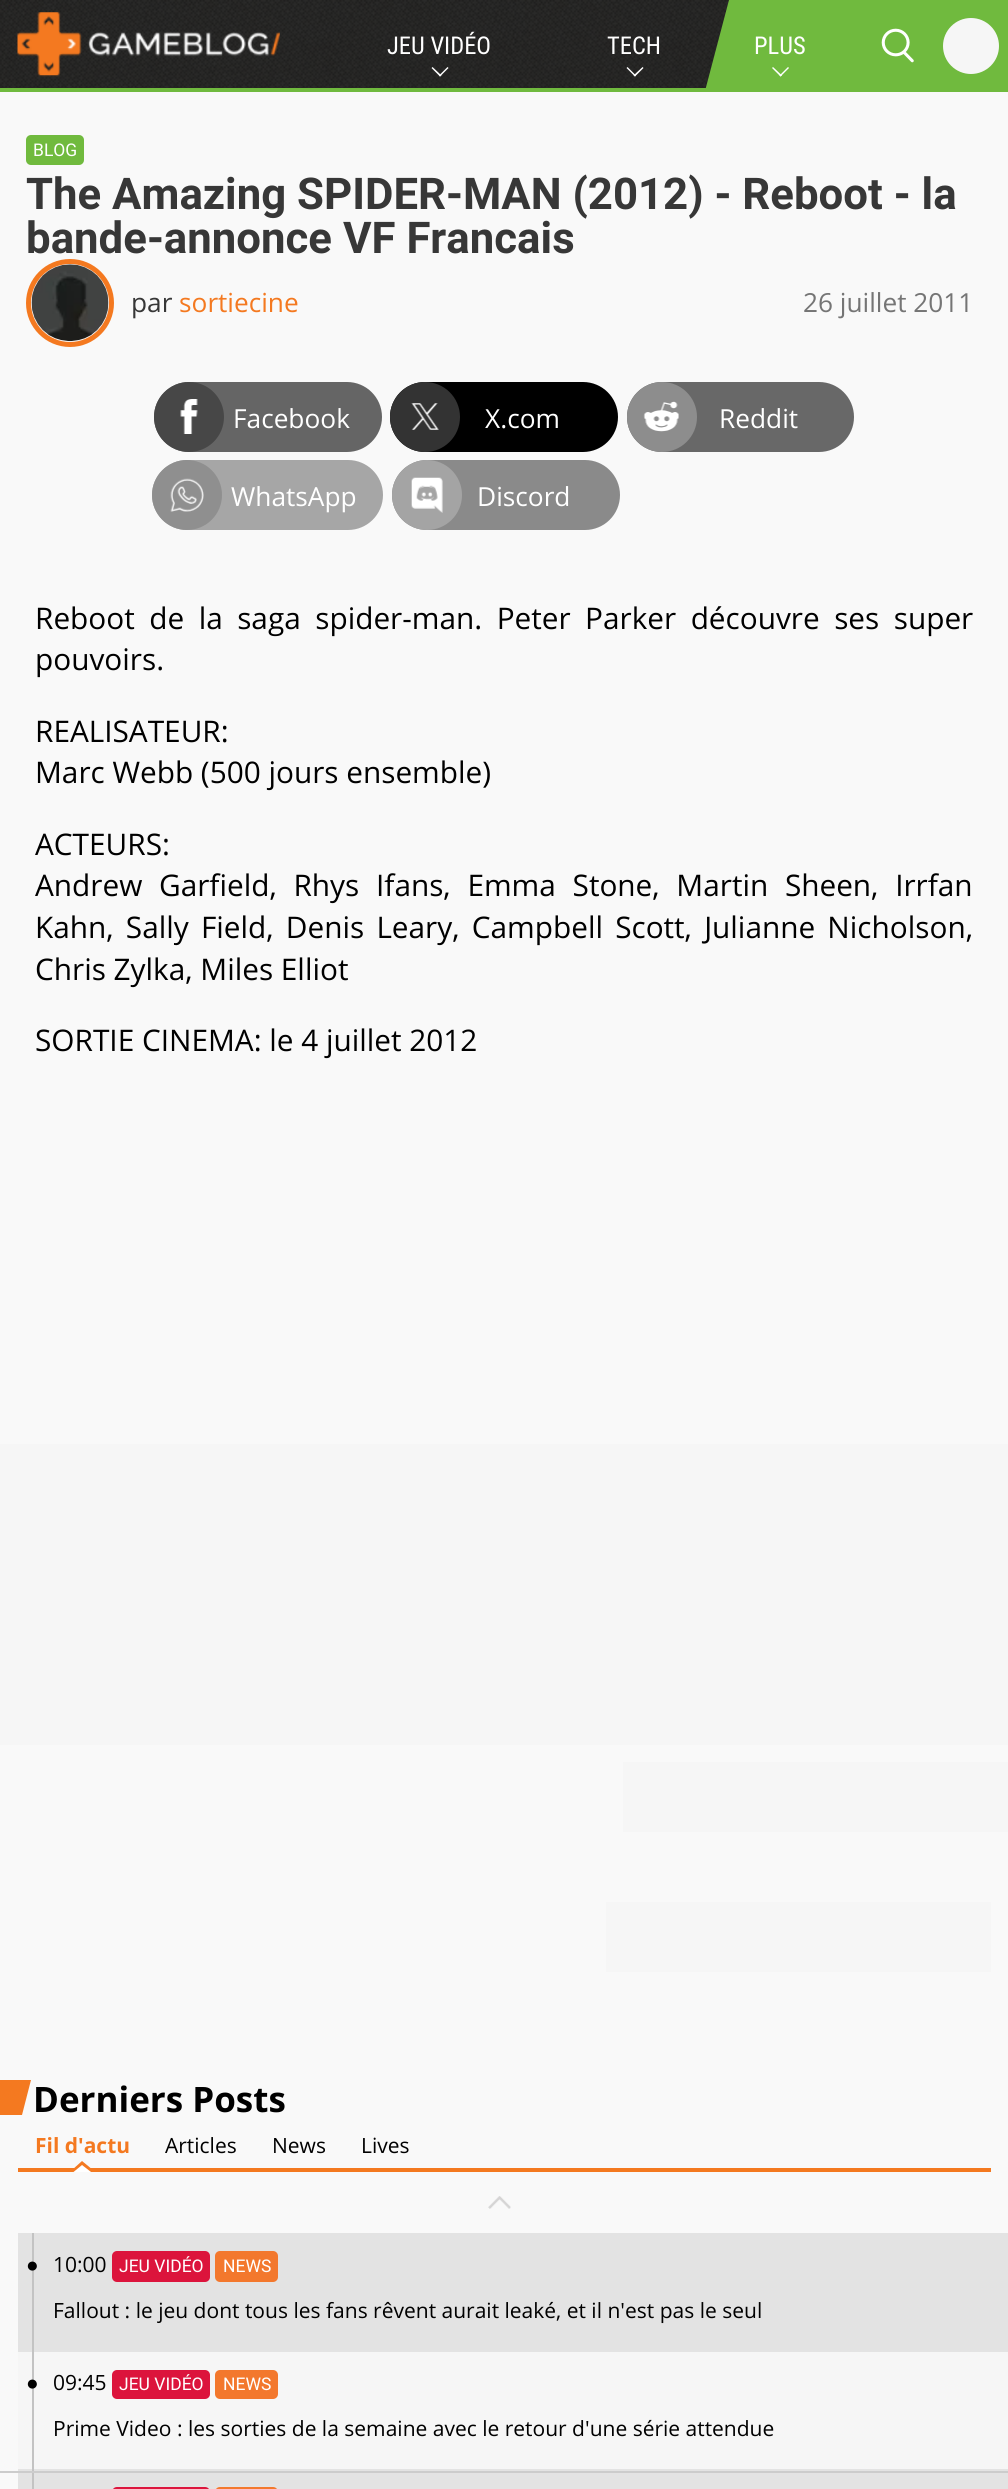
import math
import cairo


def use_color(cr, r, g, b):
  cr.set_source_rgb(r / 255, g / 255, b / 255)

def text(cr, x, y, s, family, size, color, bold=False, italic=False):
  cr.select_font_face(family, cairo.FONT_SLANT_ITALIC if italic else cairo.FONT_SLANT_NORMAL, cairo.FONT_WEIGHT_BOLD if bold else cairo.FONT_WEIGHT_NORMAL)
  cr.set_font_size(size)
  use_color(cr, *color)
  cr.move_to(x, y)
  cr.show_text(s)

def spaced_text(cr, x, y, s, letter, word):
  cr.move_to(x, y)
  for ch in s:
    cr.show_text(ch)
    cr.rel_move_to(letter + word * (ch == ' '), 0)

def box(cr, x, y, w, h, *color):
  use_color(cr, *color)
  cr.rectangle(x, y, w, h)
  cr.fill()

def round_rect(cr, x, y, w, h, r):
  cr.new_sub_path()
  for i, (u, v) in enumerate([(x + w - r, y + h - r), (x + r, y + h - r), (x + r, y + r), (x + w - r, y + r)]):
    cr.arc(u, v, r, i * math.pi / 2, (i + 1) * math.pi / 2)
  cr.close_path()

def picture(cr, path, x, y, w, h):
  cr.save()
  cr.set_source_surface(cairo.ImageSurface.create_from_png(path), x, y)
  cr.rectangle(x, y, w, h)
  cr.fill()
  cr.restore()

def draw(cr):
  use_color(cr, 249, 249, 249)
  cr.paint()
  picture(cr, "img_01.png", 0, 0, 729, 88)
  box(cr, 0, 88, 1008, 4, 112, 186, 62)
  picture(cr, "img_02.png", 17, 12, 263, 65)
  use_color(cr, 255, 255, 255)
  cr.new_path()
  cr.move_to(447.5, 67)
  cr.line_to(448.5, 68)
  cr.line_to(440, 76.5)
  cr.line_to(439, 75.5)
  cr.close_path()
  cr.fill()
  cr.new_path()
  cr.move_to(432.5, 67)
  cr.line_to(441.5, 75.5)
  cr.line_to(440, 76.5)
  cr.line_to(431.5, 68)
  cr.close_path()
  cr.fill()
  cr.new_path()
  cr.move_to(642.5, 67)
  cr.line_to(643.5, 68)
  cr.line_to(635, 76.5)
  cr.line_to(633.5, 75.5)
  cr.close_path()
  cr.fill()
  cr.new_path()
  cr.move_to(627.5, 67)
  cr.line_to(636, 75.5)
  cr.line_to(635, 76.5)
  cr.line_to(626.5, 68)
  cr.close_path()
  cr.fill()
  use_color(cr, 112, 186, 62)
  cr.new_path()
  cr.move_to(729, 0)
  cr.line_to(705, 91)
  cr.line_to(1008, 91)
  cr.line_to(1008, 0)
  cr.close_path()
  cr.fill()
  use_color(cr, 255, 255, 255)
  cr.new_path()
  cr.move_to(788, 67)
  cr.line_to(789, 68)
  cr.line_to(780.5, 76.5)
  cr.line_to(779.5, 75.5)
  cr.close_path()
  cr.fill()
  cr.new_path()
  cr.move_to(773, 67)
  cr.line_to(782, 75.5)
  cr.line_to(780.5, 76.5)
  cr.line_to(772, 68)
  cr.close_path()
  cr.fill()
  picture(cr, "img_03.png", 881, 28, 33, 35)
  use_color(cr, 246, 246, 246)
  cr.arc(971, 46, 28, 0, 2 * math.pi)
  cr.fill()
  use_color(cr, 112, 186, 62)
  round_rect(cr, 26, 135, 58, 30, 5)
  cr.fill()
  cr.arc(70, 303, 41.5, 0, 2 * math.pi)
  use_color(cr, 244, 121, 32)
  cr.set_line_width(5)
  cr.stroke()
  picture(cr, "img_04.png", 31, 264, 78, 78)
  use_color(cr, 101, 101, 101)
  round_rect(cr, 154, 382, 228, 70, 35)
  cr.fill()
  use_color(cr, 71, 71, 71)
  cr.arc(189, 417, 35, 0, 2 * math.pi)
  cr.fill()
  picture(cr, "img_05.png", 180, 399, 18, 35)
  use_color(cr, 0, 0, 0)
  round_rect(cr, 390, 382, 228, 70, 35)
  cr.fill()
  use_color(cr, 51, 51, 51)
  cr.arc(425, 417, 35, 0, 2 * math.pi)
  cr.fill()
  picture(cr, "img_06.png", 411, 403, 28, 27)
  use_color(cr, 104, 104, 104)
  round_rect(cr, 627, 382, 227, 70, 35)
  cr.fill()
  use_color(cr, 141, 141, 141)
  cr.arc(662, 417, 35, 0, 2 * math.pi)
  cr.fill()
  picture(cr, "img_07.png", 643, 401, 36, 31)
  use_color(cr, 166, 166, 166)
  round_rect(cr, 152, 460, 231, 70, 35)
  cr.fill()
  use_color(cr, 143, 143, 143)
  cr.arc(187, 495, 35, 0, 2 * math.pi)
  cr.fill()
  picture(cr, "img_08.png", 170, 478, 34, 34)
  use_color(cr, 138, 138, 138)
  round_rect(cr, 392, 460, 228, 70, 35)
  cr.fill()
  use_color(cr, 164, 164, 164)
  cr.arc(427, 495, 35, 0, 2 * math.pi)
  cr.fill()
  picture(cr, "img_09.png", 411, 477, 32, 36)
  box(cr, 0, 1444, 1008, 301, 246, 246, 246)
  box(cr, 623, 1762, 385, 70, 246, 246, 246)
  box(cr, 606, 1902, 385, 70, 246, 246, 246)
  use_color(cr, 244, 121, 32)
  cr.new_path()
  cr.move_to(-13, 2080)
  cr.line_to(31, 2080)
  cr.line_to(22, 2115)
  cr.line_to(-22, 2115)
  cr.close_path()
  cr.fill()
  box(cr, 18, 2168, 973, 4, 244, 121, 32)
  cr.new_path()
  cr.move_to(93, 2170)
  cr.line_to(72, 2170)
  cr.line_to(82, 2161)
  cr.close_path()
  cr.fill()
  use_color(cr, 255, 255, 255)
  cr.new_path()
  cr.move_to(91, 2172)
  cr.line_to(73.5, 2172)
  cr.line_to(82, 2165)
  cr.close_path()
  cr.fill()
  picture(cr, "img_10.png", 488, 2196, 23, 13)
  box(cr, 18, 2233, 990, 119, 227, 227, 227)
  box(cr, 32, 2233, 2, 119, 195, 195, 195)
  use_color(cr, 220, 20, 60)
  round_rect(cr, 112, 2251, 98, 31, 5)
  cr.fill()
  use_color(cr, 243, 120, 45)
  round_rect(cr, 215, 2251, 63, 31, 5)
  cr.fill()
  box(cr, 18, 2352, 990, 117, 246, 246, 246)
  box(cr, 32, 2352, 2, 117, 195, 195, 195)
  use_color(cr, 220, 20, 60)
  round_rect(cr, 112, 2370, 98, 29, 5)
  cr.fill()
  use_color(cr, 243, 120, 45)
  round_rect(cr, 215, 2370, 63, 29, 5)
  cr.fill()
  box(cr, 18, 2469, 990, 20, 227, 227, 227)
  box(cr, 32, 2469, 2, 20, 195, 195, 195)
  use_color(cr, 220, 20, 60)
  round_rect(cr, 112, 2487, 98, 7, 5)
  cr.fill()
  use_color(cr, 243, 120, 45)
  round_rect(cr, 215, 2487, 63, 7, 5)
  cr.fill()
  box(cr, 0, 2471, 1008, 2, 204, 204, 204)
  text(cr, 387, 54, "JEU VIDÉO", "Roboto Condensed", 24.5, (255, 255, 255))
  text(cr, 607, 54, "TECH", "Roboto Condensed", 24.5, (255, 255, 255))
  text(cr, 754, 54, "PLUS", "Roboto Condensed", 24.5, (255, 255, 255))
  text(cr, 33, 156, "BLOG", "Roboto", 17.5, (255, 255, 255))
  text(cr, 26, 209, "The Amazing SPIDER-MAN (2012) - Reboot - la", "Roboto", 43.75, (55, 55, 55), bold=True)
  text(cr, 26, 253, "bande-annonce VF Francais", "Roboto", 43.75, (55, 55, 55), bold=True)
  text(cr, 131, 312, "par", "Open Sans", 26.25, (55, 55, 55))
  text(cr, 179, 312, "sortiecine", "Open Sans", 26.25, (244, 121, 32))
  text(cr, 803, 312, "26 juillet 2011", "Open Sans", 26.25, (117, 117, 117))
  text(cr, 233, 428, "Facebook", "Open Sans", 26.25, (255, 255, 255))
  text(cr, 485, 428, "X.com", "Open Sans", 26.25, (255, 255, 255))
  text(cr, 719, 428, "Reddit", "Open Sans", 26.25, (255, 255, 255))
  text(cr, 231, 506, "WhatsApp", "Open Sans", 26.25, (255, 255, 255))
  text(cr, 477, 506, "Discord", "Open Sans", 26.25, (255, 255, 255))
  cr.set_font_size(29.75)
  use_color(cr, 0, 0, 0)
  spaced_text(cr, 35, 629, "Reboot de la saga spider-man. Peter Parker découvre ses super", 0, 6.75)
  text(cr, 35, 670, "pouvoirs.", "Open Sans", 29.75, (0, 0, 0))
  text(cr, 35, 742, "REALISATEUR:", "Open Sans", 29.75, (0, 0, 0))
  text(cr, 35, 783, "Marc Webb (500 jours ensemble)", "Open Sans", 29.75, (0, 0, 0))
  text(cr, 35, 855, "ACTEURS:", "Open Sans", 29.75, (0, 0, 0))
  spaced_text(cr, 35, 896, "Andrew Garfield, Rhys Ifans, Emma Stone, Martin Sheen, Irrfan", 0, 9)
  spaced_text(cr, 35, 938, "Kahn, Sally Field, Denis Leary, Campbell Scott, Julianne Nicholson,", 0, 4.5)
  text(cr, 35, 980, "Chris Zylka, Miles Elliot", "Open Sans", 29.75, (0, 0, 0))
  text(cr, 35, 1051, "SORTIE CINEMA: le 4 juillet 2012", "Open Sans", 29.75, (0, 0, 0))
  text(cr, 33, 2112, "Derniers Posts", "Open Sans", 35, (0, 0, 0), bold=True)
  text(cr, 35, 2153, "Fil d'actu", "Open Sans", 21, (244, 121, 32), bold=True)
  text(cr, 165, 2153, "Articles", "Open Sans", 21, (0, 0, 0))
  text(cr, 272, 2153, "News", "Open Sans", 21, (0, 0, 0))
  text(cr, 361, 2153, "Lives", "Open Sans", 21, (0, 0, 0))
  text(cr, 53, 2272, "10:00", "Open Sans", 21, (0, 0, 0))
  text(cr, 119, 2272, "JEU VIDÉO", "Roboto", 17.5, (255, 255, 255))
  text(cr, 223, 2272, "NEWS", "Roboto", 17.5, (255, 255, 255))
  text(cr, 26, 2272, "●", "Liberation Sans", 21, (0, 0, 0))
  text(cr, 53, 2318, "Fallout : le jeu dont tous les fans rêvent aurait leaké, et il n'est pas le seul", "Open Sans", 21, (0, 0, 0))
  text(cr, 53, 2390, "09:45", "Open Sans", 21, (0, 0, 0))
  text(cr, 119, 2390, "JEU VIDÉO", "Roboto", 17.5, (255, 255, 255))
  text(cr, 223, 2390, "NEWS", "Roboto", 17.5, (255, 255, 255))
  text(cr, 26, 2390, "●", "Liberation Sans", 21, (0, 0, 0))
  text(cr, 53, 2436, "Prime Video : les sorties de la semaine avec le retour d'une série attendue", "Open Sans", 21, (0, 0, 0))


surface = cairo.ImageSurface(cairo.FORMAT_RGB24, 1008, 2489)
cr = cairo.Context(surface)
options = cairo.FontOptions()
options.set_hint_metrics(cairo.HINT_METRICS_OFF)
options.set_hint_style(cairo.HINT_STYLE_NONE)
cr.set_font_options(options)
cr.set_miter_limit(4)
draw(cr)
surface.write_to_png("out.png")
